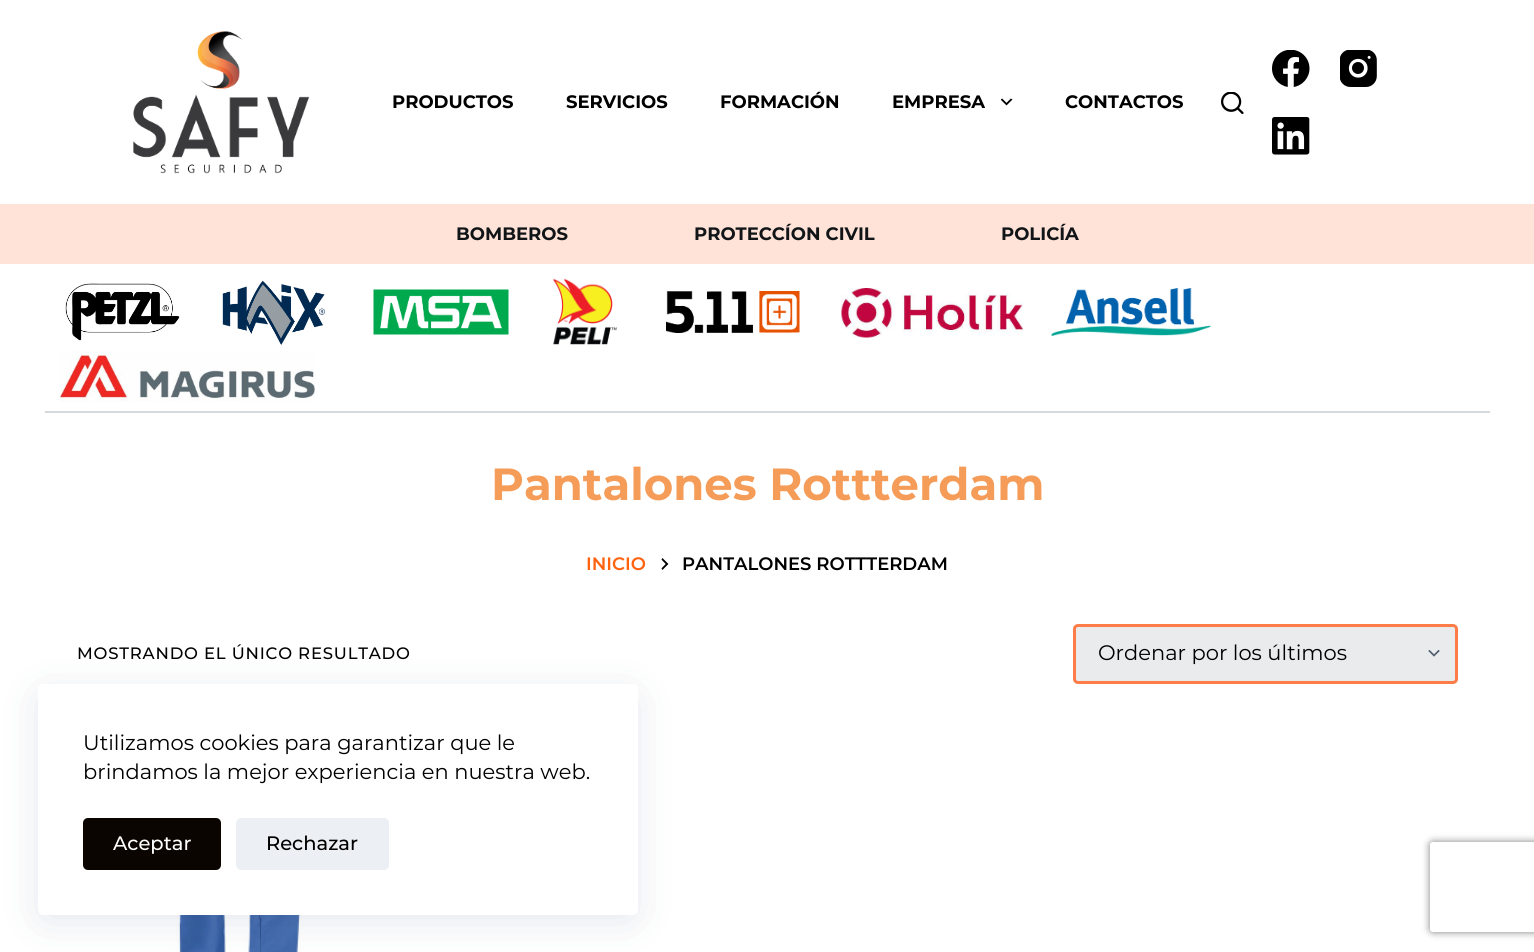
import math
import cairo


def use_color(cr, r, g, b):
  cr.set_source_rgb(r / 255, g / 255, b / 255)

def text(cr, x, y, s, family, size, color, bold=False, italic=False):
  cr.select_font_face(family, cairo.FONT_SLANT_ITALIC if italic else cairo.FONT_SLANT_NORMAL, cairo.FONT_WEIGHT_BOLD if bold else cairo.FONT_WEIGHT_NORMAL)
  cr.set_font_size(size)
  use_color(cr, *color)
  cr.move_to(x, y)
  cr.show_text(s)

def spaced_text(cr, x, y, s, letter, word):
  cr.move_to(x, y)
  for ch in s:
    cr.show_text(ch)
    cr.rel_move_to(letter + word * (ch == ' '), 0)

def box(cr, x, y, w, h, *color):
  use_color(cr, *color)
  cr.rectangle(x, y, w, h)
  cr.fill()

def round_rect(cr, x, y, w, h, r):
  cr.new_sub_path()
  for i, (u, v) in enumerate([(x + w - r, y + h - r), (x + r, y + h - r), (x + r, y + r), (x + w - r, y + r)]):
    cr.arc(u, v, r, i * math.pi / 2, (i + 1) * math.pi / 2)
  cr.close_path()

def shadow(cr, x, y, w, h, r, blur, alpha):
  cr.push_group_with_content(cairo.CONTENT_ALPHA)
  cr.set_operator(cairo.OPERATOR_SOURCE)
  for i in range(15, -16, -2):
    e = blur * i / 6
    if min(w, h) + 2 * e > 0:
      cr.set_source_rgba(0, 0, 0, alpha * math.erfc((i - 1) / 8.5) / 2)
      round_rect(cr, x - e, y - e, w + 2 * e, h + 2 * e, max(0, min(r + e + blur * .6, min(w, h) / 2 + e)))
      cr.fill()
  cr.mask(cr.pop_group())

def picture(cr, path, x, y, w, h):
  cr.save()
  cr.set_source_surface(cairo.ImageSurface.create_from_png(path), x, y)
  cr.rectangle(x, y, w, h)
  cr.fill()
  cr.restore()

def draw(cr):
  use_color(cr, 255, 255, 255)
  cr.paint()
  picture(cr, "img_01.png", 133, 31, 177, 143)
  picture(cr, "img_02.png", 1001, 98, 12, 8)
  picture(cr, "img_03.png", 1221, 92, 23, 22)
  picture(cr, "img_04.png", 1272, 50, 38, 37)
  picture(cr, "img_05.png", 1340, 50, 37, 37)
  picture(cr, "img_06.png", 1272, 117, 38, 38)
  box(cr, 0, 204, 1534, 60, 255, 227, 216)
  box(cr, 45, 411, 1445, 2, 213, 216, 220)
  picture(cr, "img_07.png", 65, 283, 115, 58)
  picture(cr, "img_08.png", 222, 280, 104, 65)
  picture(cr, "img_09.png", 373, 289, 136, 46)
  picture(cr, "img_10.png", 553, 278, 64, 67)
  picture(cr, "img_11.png", 666, 291, 134, 42)
  picture(cr, "img_12.png", 841, 288, 182, 50)
  picture(cr, "img_13.png", 1051, 288, 160, 48)
  picture(cr, "img_14.png", 60, 351, 255, 51)
  picture(cr, "img_15.png", 661, 558, 8, 12)
  use_color(cr, 233, 235, 236)
  round_rect(cr, 1073, 624, 385, 60, 5)
  cr.fill()
  picture(cr, "img_16.png", 1428, 650, 12, 7)
  round_rect(cr, 1074.5, 625.5, 382, 57, 3.5)
  use_color(cr, 253, 124, 71)
  cr.set_line_width(3)
  cr.stroke()
  picture(cr, "img_17.png", 168, 915, 133, 37)
  use_color(cr, 34, 56, 101)
  shadow(cr, 45, 699, 585, 216, 0, 22.5, 0.15)
  use_color(cr, 255, 255, 255)
  round_rect(cr, 38, 684, 600, 231, 5)
  cr.fill()
  use_color(cr, 10, 5, 0)
  round_rect(cr, 83, 818, 138, 52, 5)
  cr.fill()
  use_color(cr, 236, 239, 243)
  round_rect(cr, 236, 818, 153, 52, 5)
  cr.fill()
  cr.save()
  cr.set_fill_rule(cairo.FILL_RULE_EVEN_ODD)
  cr.new_path()
  cr.move_to(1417, 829)
  cr.line_to(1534, 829)
  cr.line_to(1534, 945)
  cr.line_to(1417, 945)
  cr.close_path()
  cr.move_to(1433, 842)
  cr.line_to(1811, 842)
  cr.curve_to(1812.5, 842, 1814, 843.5, 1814, 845)
  cr.line_to(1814, 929)
  cr.curve_to(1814, 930.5, 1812.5, 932, 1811, 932)
  cr.line_to(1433, 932)
  cr.curve_to(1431.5, 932, 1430, 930.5, 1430, 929)
  cr.line_to(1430, 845)
  cr.curve_to(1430, 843.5, 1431.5, 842, 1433, 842)
  cr.close_path()
  cr.clip()
  use_color(cr, 128, 128, 128)
  shadow(cr, 1430, 842, 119, 90, 3, 4, 1)
  cr.restore()
  text(cr, 392, 108, "PRODUCTOS", "Montserrat", 18, (0, 0, 0), bold=True)
  text(cr, 566, 108, "SERVICIOS", "Montserrat", 18, (0, 0, 0), bold=True)
  text(cr, 720, 108, "FORMACIÓN", "Montserrat", 18, (0, 0, 0), bold=True)
  text(cr, 892, 108, "EMPRESA", "Montserrat", 18, (0, 0, 0), bold=True)
  text(cr, 1065, 108, "CONTACTOS", "Montserrat", 18, (0, 0, 0), bold=True)
  text(cr, 456, 240, "BOMBEROS", "Montserrat", 18, (17, 21, 24), bold=True)
  text(cr, 694, 240, "PROTECCÍON CIVIL", "Montserrat", 18, (17, 21, 24), bold=True)
  text(cr, 1001, 240, "POLICÍA", "Montserrat", 18, (17, 21, 24), bold=True)
  text(cr, 491, 500, "Pantalones Rottterdam", "Montserrat", 45, (245, 156, 89), bold=True)
  text(cr, 586, 570, "INICIO", "Montserrat SemiBold", 18, (255, 99, 16))
  text(cr, 682, 570, "PANTALONES ROTTTERDAM", "Montserrat SemiBold", 18, (0, 0, 0))
  cr.select_font_face("Montserrat Medium")
  cr.set_font_size(16.5)
  spaced_text(cr, 77, 659, "MOSTRANDO EL ÚNICO RESULTADO", 0.8, 0)
  text(cr, 1098, 660, "Ordenar por los últimos", "Montserrat", 21, (0, 0, 0))
  text(cr, 83, 750, "Utilizamos cookies para garantizar que le", "Montserrat", 21, (0, 0, 0))
  text(cr, 83, 779, "brindamos la mejor experiencia en nuestra web.", "Montserrat", 21, (0, 0, 0))
  text(cr, 113, 850, "Aceptar", "Montserrat Medium", 19.5, (255, 255, 255))
  text(cr, 266, 850, "Rechazar", "Montserrat Medium", 19.5, (0, 0, 0))


surface = cairo.ImageSurface(cairo.FORMAT_RGB24, 1534, 952)
cr = cairo.Context(surface)
options = cairo.FontOptions()
options.set_hint_metrics(cairo.HINT_METRICS_OFF)
options.set_hint_style(cairo.HINT_STYLE_NONE)
cr.set_font_options(options)
cr.set_miter_limit(4)
draw(cr)
surface.write_to_png("out.png")
